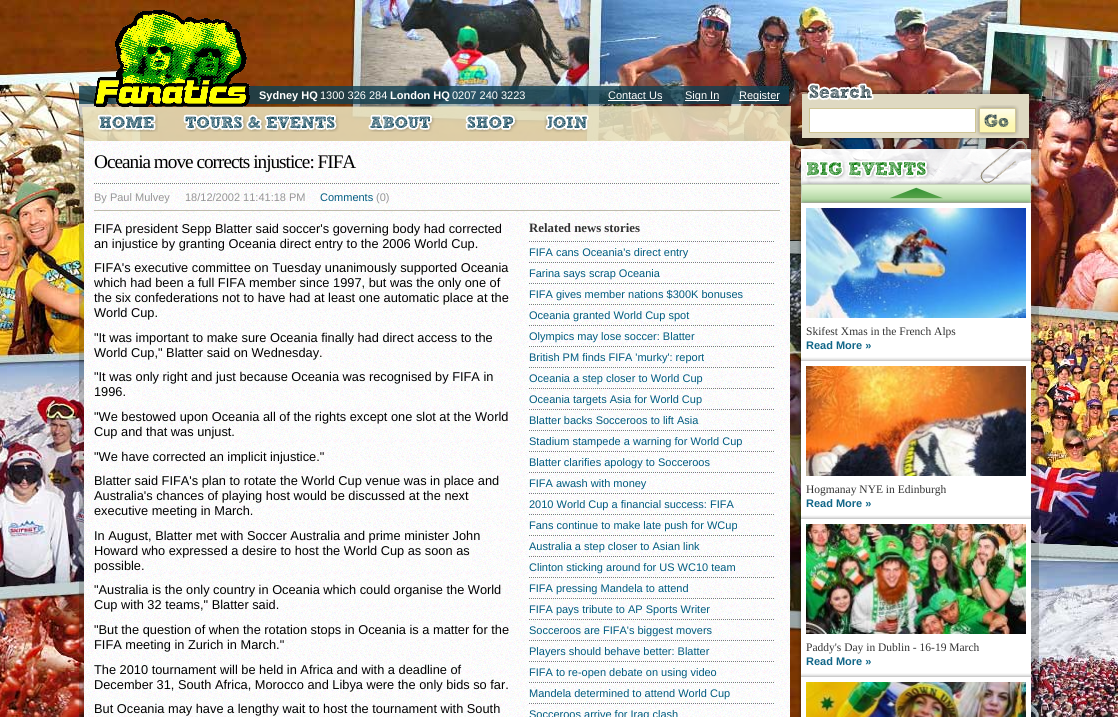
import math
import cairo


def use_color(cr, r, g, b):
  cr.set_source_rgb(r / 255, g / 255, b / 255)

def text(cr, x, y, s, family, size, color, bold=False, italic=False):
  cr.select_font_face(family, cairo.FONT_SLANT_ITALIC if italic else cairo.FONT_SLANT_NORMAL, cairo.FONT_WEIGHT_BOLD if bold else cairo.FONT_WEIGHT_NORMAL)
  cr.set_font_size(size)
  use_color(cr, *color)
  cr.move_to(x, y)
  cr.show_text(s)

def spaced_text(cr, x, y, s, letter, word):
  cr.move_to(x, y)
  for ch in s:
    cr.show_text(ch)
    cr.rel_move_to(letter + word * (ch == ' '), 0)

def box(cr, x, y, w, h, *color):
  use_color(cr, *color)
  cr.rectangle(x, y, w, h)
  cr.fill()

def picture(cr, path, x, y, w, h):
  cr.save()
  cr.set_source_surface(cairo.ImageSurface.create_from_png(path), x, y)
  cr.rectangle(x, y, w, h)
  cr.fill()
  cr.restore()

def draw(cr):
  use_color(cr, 255, 255, 255)
  cr.paint()
  picture(cr, "img_01.png", 0, 0, 1118, 717)
  cr.set_source_rgba(0, 0, 0, 0.2)
  cr.rectangle(79, 90, 960, 627)
  cr.fill()
  cr.set_source_rgba(0.067, 0.251, 0.322, 0.8)
  cr.rectangle(79, 86, 710, 18)
  cr.fill()
  picture(cr, "img_02.png", 94, 10, 156, 97)
  box(cr, 608, 100, 54, 1, 255, 255, 255)
  box(cr, 685, 100, 34, 1, 255, 255, 255)
  box(cr, 739, 100, 40, 1, 255, 255, 255)
  picture(cr, "img_03.png", 802, 91, 227, 49)
  picture(cr, "img_04.png", 807, 83, 67, 18)
  cr.rectangle(809.5, 108.5, 166, 24)
  cr.fill_preserve()
  use_color(cr, 207, 197, 148)
  cr.set_line_width(1)
  cr.stroke()
  picture(cr, "img_05.png", 976, 105, 43, 31)
  picture(cr, "img_06.png", 82, 106, 709, 35)
  picture(cr, "img_07.png", 97, 114, 61, 18)
  picture(cr, "img_08.png", 183, 114, 156, 18)
  picture(cr, "img_09.png", 368, 114, 67, 18)
  picture(cr, "img_10.png", 465, 114, 53, 18)
  picture(cr, "img_11.png", 544, 114, 45, 19)
  picture(cr, "img_12.png", 84, 141, 706, 576)
  cr.new_path()
  cr.move_to(94, 183.5)
  cr.line_to(780, 183.5)
  use_color(cr, 122, 127, 127)
  cr.set_dash([1, 1])
  cr.stroke()
  box(cr, 94, 210, 686, 1, 189, 187, 171)
  cr.new_path()
  cr.move_to(529, 241.5)
  cr.line_to(774, 241.5)
  use_color(cr, 122, 127, 127)
  cr.stroke()
  cr.new_path()
  cr.move_to(529, 262.5)
  cr.line_to(774, 262.5)
  cr.stroke()
  cr.new_path()
  cr.move_to(529, 283.5)
  cr.line_to(774, 283.5)
  cr.stroke()
  cr.new_path()
  cr.move_to(529, 304.5)
  cr.line_to(774, 304.5)
  cr.stroke()
  cr.new_path()
  cr.move_to(529, 325.5)
  cr.line_to(774, 325.5)
  cr.stroke()
  cr.new_path()
  cr.move_to(529, 346.5)
  cr.line_to(774, 346.5)
  cr.stroke()
  cr.new_path()
  cr.move_to(529, 367.5)
  cr.line_to(774, 367.5)
  cr.stroke()
  cr.new_path()
  cr.move_to(529, 388.5)
  cr.line_to(774, 388.5)
  cr.stroke()
  cr.new_path()
  cr.move_to(529, 409.5)
  cr.line_to(774, 409.5)
  cr.stroke()
  cr.new_path()
  cr.move_to(529, 430.5)
  cr.line_to(774, 430.5)
  cr.stroke()
  cr.new_path()
  cr.move_to(529, 451.5)
  cr.line_to(774, 451.5)
  cr.stroke()
  cr.new_path()
  cr.move_to(529, 472.5)
  cr.line_to(774, 472.5)
  cr.stroke()
  cr.new_path()
  cr.move_to(529, 493.5)
  cr.line_to(774, 493.5)
  cr.stroke()
  cr.new_path()
  cr.move_to(529, 514.5)
  cr.line_to(774, 514.5)
  cr.stroke()
  cr.new_path()
  cr.move_to(529, 535.5)
  cr.line_to(774, 535.5)
  cr.stroke()
  cr.new_path()
  cr.move_to(529, 556.5)
  cr.line_to(774, 556.5)
  cr.stroke()
  cr.new_path()
  cr.move_to(529, 577.5)
  cr.line_to(774, 577.5)
  cr.stroke()
  cr.new_path()
  cr.move_to(529, 598.5)
  cr.line_to(774, 598.5)
  cr.stroke()
  cr.new_path()
  cr.move_to(529, 619.5)
  cr.line_to(774, 619.5)
  cr.stroke()
  cr.new_path()
  cr.move_to(529, 640.5)
  cr.line_to(774, 640.5)
  cr.stroke()
  cr.new_path()
  cr.move_to(529, 661.5)
  cr.line_to(774, 661.5)
  cr.stroke()
  cr.new_path()
  cr.move_to(529, 682.5)
  cr.line_to(774, 682.5)
  cr.stroke()
  cr.new_path()
  cr.move_to(529, 703.5)
  cr.line_to(774, 703.5)
  cr.stroke()
  picture(cr, "img_13.png", 801, 141, 230, 43)
  picture(cr, "img_14.png", 801, 184, 230, 19)
  picture(cr, "img_15.png", 797, 203, 234, 514)
  picture(cr, "img_16.png", 806, 208, 220, 110)
  picture(cr, "img_17.png", 801, 357, 230, 4)
  picture(cr, "img_18.png", 806, 366, 220, 110)
  picture(cr, "img_17.png", 801, 515, 230, 4)
  picture(cr, "img_19.png", 806, 524, 220, 110)
  picture(cr, "img_17.png", 801, 673, 230, 4)
  picture(cr, "img_20.png", 806, 682, 220, 35)
  text(cr, 259, 99, "Sydney HQ", "Liberation Sans", 11, (255, 255, 255), bold=True)
  text(cr, 320, 99, "1300 326 284", "Liberation Sans", 11, (255, 255, 255))
  text(cr, 390, 99, "London HQ", "Liberation Sans", 11, (255, 255, 255), bold=True)
  text(cr, 452, 99, "0207 240 3223", "Liberation Sans", 11, (255, 255, 255))
  text(cr, 608, 99, "Contact Us", "Liberation Sans", 11, (255, 255, 255))
  text(cr, 685, 99, "Sign In", "Liberation Sans", 11, (255, 255, 255))
  text(cr, 739, 99, "Register", "Liberation Sans", 11, (255, 255, 255))
  cr.select_font_face("Liberation Serif")
  cr.set_font_size(19.25)
  use_color(cr, 0, 0, 0)
  spaced_text(cr, 94, 168, "Oceania move corrects injustice: FIFA", -1, 0)
  text(cr, 94, 201, "By Paul Mulvey", "Liberation Sans", 11, (149, 149, 149))
  text(cr, 185, 201, "18/12/2002 11:41:18 PM", "Liberation Sans", 11, (149, 149, 149))
  text(cr, 320, 201, "Comments", "Liberation Sans", 11, (0, 91, 127))
  text(cr, 376, 201, "(0)", "Liberation Sans", 11, (149, 149, 149))
  text(cr, 94, 233, "FIFA president Sepp Blatter said soccer's governing body had corrected", "Liberation Sans", 12.8, (0, 0, 0))
  text(cr, 94, 248, "an injustice by granting Oceania direct entry to the 2006 World Cup.", "Liberation Sans", 12.8, (0, 0, 0))
  text(cr, 94, 272, "FIFA's executive committee on Tuesday unanimously supported Oceania", "Liberation Sans", 12.8, (0, 0, 0))
  text(cr, 94, 287, "which had been a full FIFA member since 1997, but was the only one of", "Liberation Sans", 12.8, (0, 0, 0))
  text(cr, 94, 302, "the six confederations not to have had at least one automatic place at the", "Liberation Sans", 12.8, (0, 0, 0))
  text(cr, 94, 317, "World Cup.", "Liberation Sans", 12.8, (0, 0, 0))
  text(cr, 94, 342, "\"It was important to make sure Oceania finally had direct access to the", "Liberation Sans", 12.8, (0, 0, 0))
  text(cr, 94, 357, "World Cup,\" Blatter said on Wednesday.", "Liberation Sans", 12.8, (0, 0, 0))
  text(cr, 94, 381, "\"It was only right and just because Oceania was recognised by FIFA in", "Liberation Sans", 12.8, (0, 0, 0))
  text(cr, 94, 396, "1996.", "Liberation Sans", 12.8, (0, 0, 0))
  text(cr, 94, 421, "\"We bestowed upon Oceania all of the rights except one slot at the World", "Liberation Sans", 12.8, (0, 0, 0))
  text(cr, 94, 436, "Cup and that was unjust.", "Liberation Sans", 12.8, (0, 0, 0))
  text(cr, 94, 461, "\"We have corrected an implicit injustice.\"", "Liberation Sans", 12.8, (0, 0, 0))
  text(cr, 94, 485, "Blatter said FIFA's plan to rotate the World Cup venue was in place and", "Liberation Sans", 12.8, (0, 0, 0))
  text(cr, 94, 500, "Australia's chances of playing host would be discussed at the next", "Liberation Sans", 12.8, (0, 0, 0))
  text(cr, 94, 515, "executive meeting in March.", "Liberation Sans", 12.8, (0, 0, 0))
  text(cr, 94, 540, "In August, Blatter met with Soccer Australia and prime minister John", "Liberation Sans", 12.8, (0, 0, 0))
  text(cr, 94, 555, "Howard who expressed a desire to host the World Cup as soon as", "Liberation Sans", 12.8, (0, 0, 0))
  text(cr, 94, 570, "possible.", "Liberation Sans", 12.8, (0, 0, 0))
  text(cr, 94, 594, "\"Australia is the only country in Oceania which could organise the World", "Liberation Sans", 12.8, (0, 0, 0))
  text(cr, 94, 609, "Cup with 32 teams,\" Blatter said.", "Liberation Sans", 12.8, (0, 0, 0))
  text(cr, 94, 634, "\"But the question of when the rotation stops in Oceania is a matter for the", "Liberation Sans", 12.8, (0, 0, 0))
  text(cr, 94, 649, "FIFA meeting in Zurich in March.\"", "Liberation Sans", 12.8, (0, 0, 0))
  text(cr, 94, 674, "The 2010 tournament will be held in Africa and with a deadline of", "Liberation Sans", 12.8, (0, 0, 0))
  text(cr, 94, 689, "December 31, South Africa, Morocco and Libya were the only bids so far.", "Liberation Sans", 12.8, (0, 0, 0))
  text(cr, 94, 713, "But Oceania may have a lengthy wait to host the tournament with South", "Liberation Sans", 12.8, (0, 0, 0))
  text(cr, 529, 232, "Related news stories", "Liberation Serif", 12.8, (51, 51, 51), bold=True)
  text(cr, 529, 256, "FIFA cans Oceania's direct entry", "Liberation Sans", 11, (0, 91, 127))
  text(cr, 529, 277, "Farina says scrap Oceania", "Liberation Sans", 11, (0, 91, 127))
  text(cr, 529, 298, "FIFA gives member nations $300K bonuses", "Liberation Sans", 11, (0, 91, 127))
  text(cr, 529, 319, "Oceania granted World Cup spot", "Liberation Sans", 11, (0, 91, 127))
  text(cr, 529, 340, "Olympics may lose soccer: Blatter", "Liberation Sans", 11, (0, 91, 127))
  text(cr, 529, 361, "British PM finds FIFA 'murky': report", "Liberation Sans", 11, (0, 91, 127))
  text(cr, 529, 382, "Oceania a step closer to World Cup", "Liberation Sans", 11, (0, 91, 127))
  text(cr, 529, 403, "Oceania targets Asia for World Cup", "Liberation Sans", 11, (0, 91, 127))
  text(cr, 529, 424, "Blatter backs Socceroos to lift Asia", "Liberation Sans", 11, (0, 91, 127))
  text(cr, 529, 445, "Stadium stampede a warning for World Cup", "Liberation Sans", 11, (0, 91, 127))
  text(cr, 529, 466, "Blatter clarifies apology to Socceroos", "Liberation Sans", 11, (0, 91, 127))
  text(cr, 529, 487, "FIFA awash with money", "Liberation Sans", 11, (0, 91, 127))
  text(cr, 529, 508, "2010 World Cup a financial success: FIFA", "Liberation Sans", 11, (0, 91, 127))
  text(cr, 529, 529, "Fans continue to make late push for WCup", "Liberation Sans", 11, (0, 91, 127))
  text(cr, 529, 550, "Australia a step closer to Asian link", "Liberation Sans", 11, (0, 91, 127))
  text(cr, 529, 571, "Clinton sticking around for US WC10 team", "Liberation Sans", 11, (0, 91, 127))
  text(cr, 529, 592, "FIFA pressing Mandela to attend", "Liberation Sans", 11, (0, 91, 127))
  text(cr, 529, 613, "FIFA pays tribute to AP Sports Writer", "Liberation Sans", 11, (0, 91, 127))
  text(cr, 529, 634, "Socceroos are FIFA's biggest movers", "Liberation Sans", 11, (0, 91, 127))
  text(cr, 529, 655, "Players should behave better: Blatter", "Liberation Sans", 11, (0, 91, 127))
  text(cr, 529, 676, "FIFA to re-open debate on using video", "Liberation Sans", 11, (0, 91, 127))
  text(cr, 529, 697, "Mandela determined to attend World Cup", "Liberation Sans", 11, (0, 91, 127))
  text(cr, 529, 718, "Socceroos arrive for Iraq clash", "Liberation Sans", 11, (0, 91, 127))
  text(cr, 806, 335, "Skifest Xmas in the French Alps", "Liberation Serif", 11.5, (51, 51, 51))
  text(cr, 806, 349, "Read More »", "Liberation Sans", 11, (17, 102, 136), bold=True)
  text(cr, 806, 493, "Hogmanay NYE in Edinburgh", "Liberation Serif", 11.5, (51, 51, 51))
  text(cr, 806, 507, "Read More »", "Liberation Sans", 11, (17, 102, 136), bold=True)
  text(cr, 806, 651, "Paddy's Day in Dublin - 16-19 March", "Liberation Serif", 11.5, (51, 51, 51))
  text(cr, 806, 665, "Read More »", "Liberation Sans", 11, (17, 102, 136), bold=True)


surface = cairo.ImageSurface(cairo.FORMAT_RGB24, 1118, 717)
cr = cairo.Context(surface)
options = cairo.FontOptions()
options.set_hint_metrics(cairo.HINT_METRICS_OFF)
options.set_hint_style(cairo.HINT_STYLE_NONE)
cr.set_font_options(options)
cr.set_miter_limit(4)
draw(cr)
surface.write_to_png("out.png")
